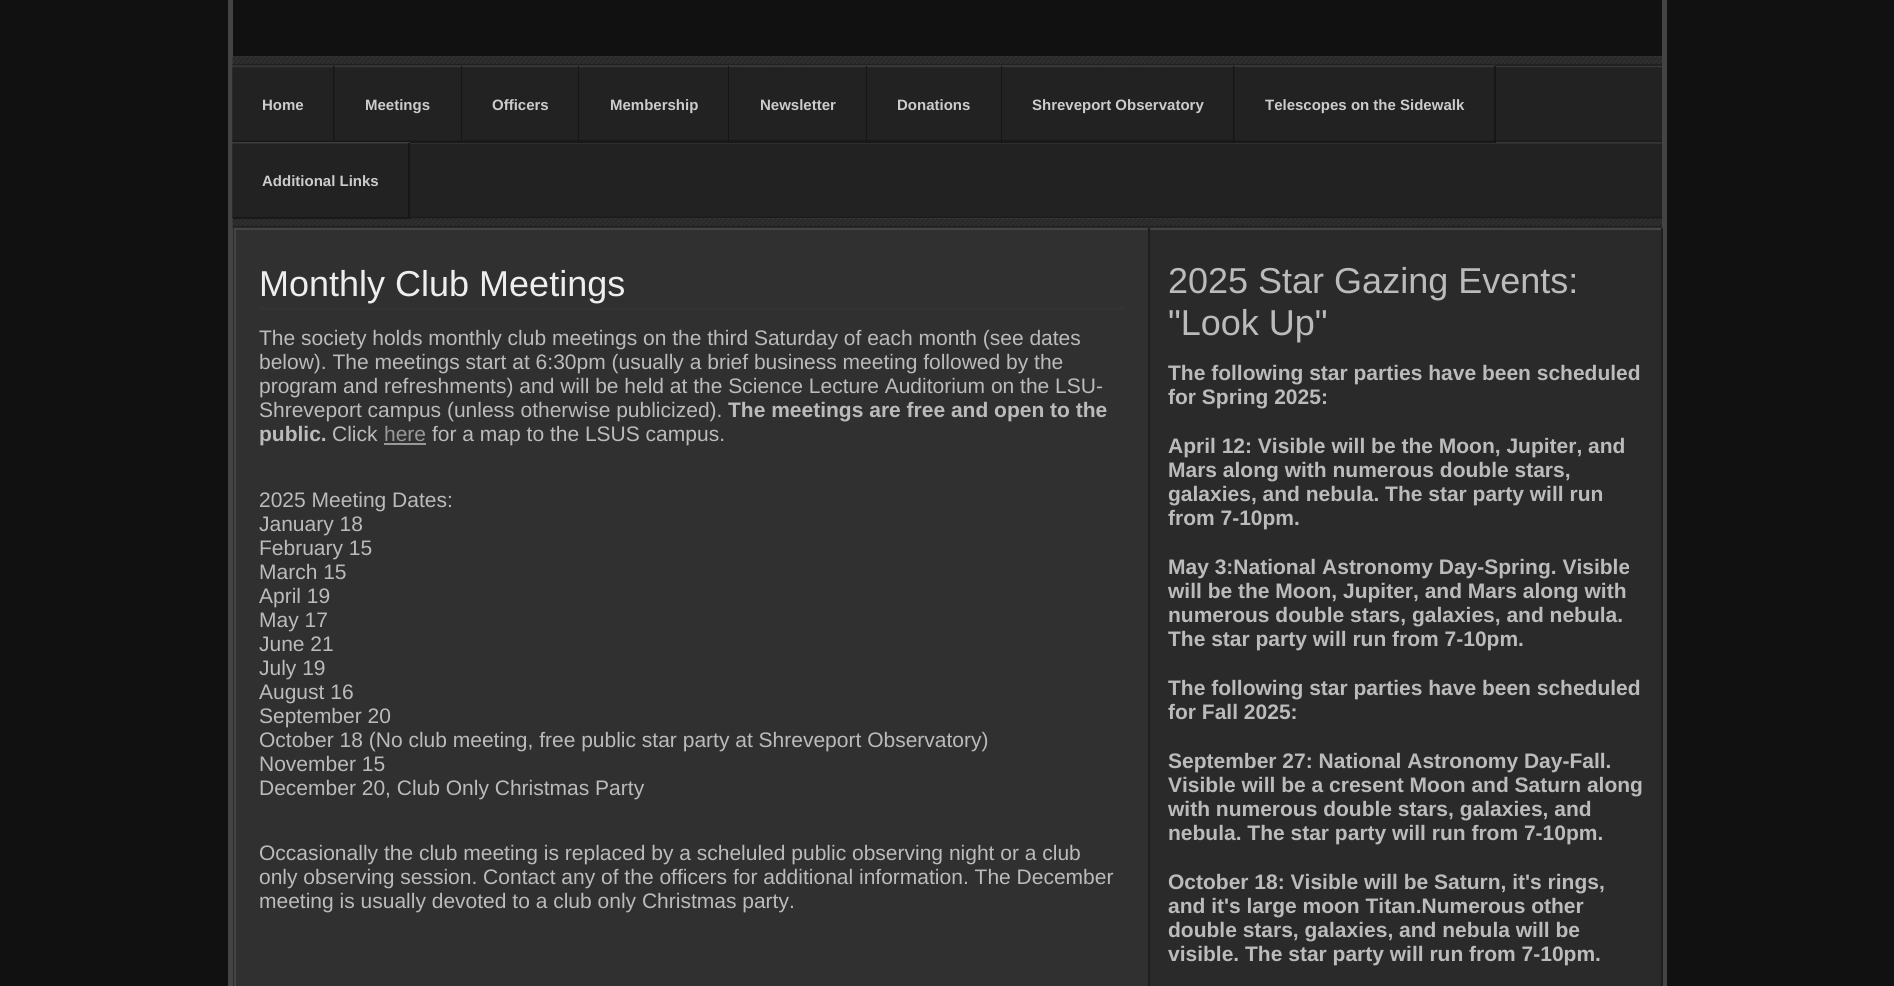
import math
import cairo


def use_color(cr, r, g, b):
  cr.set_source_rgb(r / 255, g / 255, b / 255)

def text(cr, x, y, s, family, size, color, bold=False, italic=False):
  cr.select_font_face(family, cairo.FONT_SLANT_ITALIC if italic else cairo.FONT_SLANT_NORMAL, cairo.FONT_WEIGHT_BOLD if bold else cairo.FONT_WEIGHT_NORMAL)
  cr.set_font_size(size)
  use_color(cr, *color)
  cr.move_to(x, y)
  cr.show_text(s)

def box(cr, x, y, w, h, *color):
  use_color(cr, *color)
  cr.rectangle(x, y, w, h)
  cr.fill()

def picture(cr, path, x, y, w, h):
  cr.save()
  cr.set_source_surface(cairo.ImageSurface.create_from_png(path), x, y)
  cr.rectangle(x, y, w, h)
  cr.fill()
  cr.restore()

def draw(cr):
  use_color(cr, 17, 17, 17)
  cr.paint()
  picture(cr, "img_01.png", 279, 65, 1336, 154)
  box(cr, 1662, 0, 5, 986, 68, 68, 68)
  box(cr, 228, 0, 5, 986, 68, 68, 68)
  box(cr, 233, 56, 1429, 1, 51, 51, 51)
  picture(cr, "img_02.png", 232, 56, 1430, 10)
  picture(cr, "img_03.png", 232, 65, 1430, 154)
  picture(cr, "img_04.png", 232, 65, 103, 77)
  box(cr, 333, 66, 2, 77, 22, 22, 22)
  box(cr, 335, 141, 126, 2, 25, 25, 25)
  picture(cr, "img_05.png", 334, 65, 128, 76)
  box(cr, 461, 66, 1, 77, 22, 22, 22)
  box(cr, 462, 140, 116, 3, 25, 25, 25)
  picture(cr, "img_06.png", 462, 65, 117, 75)
  box(cr, 578, 66, 1, 77, 22, 22, 22)
  box(cr, 579, 140, 149, 3, 25, 25, 25)
  picture(cr, "img_07.png", 579, 65, 150, 75)
  box(cr, 728, 66, 1, 77, 22, 22, 22)
  box(cr, 729, 140, 137, 3, 25, 25, 25)
  picture(cr, "img_08.png", 729, 65, 138, 75)
  box(cr, 866, 66, 1, 77, 22, 22, 22)
  box(cr, 867, 140, 134, 3, 25, 25, 25)
  picture(cr, "img_09.png", 867, 65, 135, 75)
  box(cr, 1001, 66, 1, 77, 22, 22, 22)
  box(cr, 1002, 140, 231, 3, 25, 25, 25)
  picture(cr, "img_10.png", 1002, 65, 233, 75)
  box(cr, 1233, 66, 2, 77, 22, 22, 22)
  box(cr, 1235, 141, 259, 2, 25, 25, 25)
  picture(cr, "img_11.png", 1234, 65, 262, 76)
  box(cr, 1494, 66, 2, 77, 22, 22, 22)
  box(cr, 233, 227, 1429, 1, 51, 51, 51)
  picture(cr, "img_13.png", 232, 218, 1430, 10)
  box(cr, 233, 218, 175, 1, 25, 25, 25)
  picture(cr, "img_12.png", 232, 142, 178, 77)
  box(cr, 408, 143, 2, 76, 22, 22, 22)
  box(cr, 236, 230, 912, 756, 48, 48, 48)
  box(cr, 233, 228, 1, 758, 42, 42, 42)
  box(cr, 234, 228, 1428, 2, 68, 68, 68)
  box(cr, 234, 228, 2, 758, 68, 68, 68)
  box(cr, 259, 307, 865, 3, 51, 51, 51)
  box(cr, 384, 443, 42, 2, 153, 153, 153)
  box(cr, 1150, 230, 511, 756, 42, 42, 42)
  box(cr, 1661, 228, 2, 758, 30, 30, 30)
  box(cr, 1148, 228, 2, 758, 30, 30, 30)
  text(cr, 262, 110, "Home", "Liberation Sans", 15, (204, 204, 204), bold=True)
  text(cr, 365, 110, "Meetings", "Liberation Sans", 15, (204, 204, 204), bold=True)
  text(cr, 492, 110, "Officers", "Liberation Sans", 15, (204, 204, 204), bold=True)
  text(cr, 610, 110, "Membership", "Liberation Sans", 15, (204, 204, 204), bold=True)
  text(cr, 760, 110, "Newsletter", "Liberation Sans", 15, (204, 204, 204), bold=True)
  text(cr, 897, 110, "Donations", "Liberation Sans", 15, (204, 204, 204), bold=True)
  text(cr, 1032, 110, "Shreveport Observatory", "Liberation Sans", 15, (204, 204, 204), bold=True)
  text(cr, 1265, 110, "Telescopes on the Sidewalk", "Liberation Sans", 15, (204, 204, 204), bold=True)
  text(cr, 262, 186, "Additional Links", "Liberation Sans", 15, (204, 204, 204), bold=True)
  text(cr, 259, 296, "Monthly Club Meetings", "Liberation Sans", 36, (238, 238, 238))
  text(cr, 259, 345, "The society holds monthly club meetings on the third Saturday of each month (see dates", "Liberation Sans", 21, (187, 187, 187))
  text(cr, 259, 369, "below). The meetings start at 6:30pm (usually a brief business meeting followed by the", "Liberation Sans", 21, (187, 187, 187))
  text(cr, 259, 393, "program and refreshments) and will be held at the Science Lecture Auditorium on the LSU-", "Liberation Sans", 21, (187, 187, 187))
  text(cr, 259, 417, "Shreveport campus (unless otherwise publicized).", "Liberation Sans", 21, (187, 187, 187))
  text(cr, 728, 417, "The meetings are free and open to the", "Liberation Sans", 21, (187, 187, 187), bold=True)
  text(cr, 259, 441, "public.", "Liberation Sans", 21, (187, 187, 187), bold=True)
  text(cr, 332, 441, "Click", "Liberation Sans", 21, (187, 187, 187))
  text(cr, 384, 441, "here", "Liberation Sans", 21, (153, 153, 153))
  text(cr, 432, 441, "for a map to the LSUS campus.", "Liberation Sans", 21, (187, 187, 187))
  text(cr, 259, 507, "2025 Meeting Dates:", "Liberation Sans", 21, (187, 187, 187))
  text(cr, 259, 531, "January 18", "Liberation Sans", 21, (187, 187, 187))
  text(cr, 259, 555, "February 15", "Liberation Sans", 21, (187, 187, 187))
  text(cr, 259, 579, "March 15", "Liberation Sans", 21, (187, 187, 187))
  text(cr, 259, 603, "April 19", "Liberation Sans", 21, (187, 187, 187))
  text(cr, 259, 627, "May 17", "Liberation Sans", 21, (187, 187, 187))
  text(cr, 259, 651, "June 21", "Liberation Sans", 21, (187, 187, 187))
  text(cr, 259, 675, "July 19", "Liberation Sans", 21, (187, 187, 187))
  text(cr, 259, 699, "August 16", "Liberation Sans", 21, (187, 187, 187))
  text(cr, 259, 723, "September 20", "Liberation Sans", 21, (187, 187, 187))
  text(cr, 259, 747, "October 18 (No club meeting, free public star party at Shreveport Observatory)", "Liberation Sans", 21, (187, 187, 187))
  text(cr, 259, 771, "November 15", "Liberation Sans", 21, (187, 187, 187))
  text(cr, 259, 795, "December 20, Club Only Christmas Party", "Liberation Sans", 21, (187, 187, 187))
  text(cr, 259, 860, "Occasionally the club meeting is replaced by a scheluled public observing night or a club", "Liberation Sans", 21, (187, 187, 187))
  text(cr, 259, 884, "only observing session. Contact any of the officers for additional information. The December", "Liberation Sans", 21, (187, 187, 187))
  text(cr, 259, 908, "meeting is usually devoted to a club only Christmas party.", "Liberation Sans", 21, (187, 187, 187))
  text(cr, 1168, 293, "2025 Star Gazing Events:", "Liberation Sans", 36, (187, 187, 187))
  text(cr, 1168, 335, "\"Look Up\"", "Liberation Sans", 36, (187, 187, 187))
  text(cr, 1168, 380, "The following star parties have been scheduled", "Liberation Sans", 21, (187, 187, 187), bold=True)
  text(cr, 1168, 404, "for Spring 2025:", "Liberation Sans", 21, (187, 187, 187), bold=True)
  text(cr, 1168, 453, "April 12: Visible will be the Moon, Jupiter, and", "Liberation Sans", 21, (187, 187, 187), bold=True)
  text(cr, 1168, 477, "Mars along with numerous double stars,", "Liberation Sans", 21, (187, 187, 187), bold=True)
  text(cr, 1168, 501, "galaxies, and nebula. The star party will run", "Liberation Sans", 21, (187, 187, 187), bold=True)
  text(cr, 1168, 525, "from 7-10pm.", "Liberation Sans", 21, (187, 187, 187), bold=True)
  text(cr, 1168, 574, "May 3:National Astronomy Day-Spring. Visible", "Liberation Sans", 21, (187, 187, 187), bold=True)
  text(cr, 1168, 598, "will be the Moon, Jupiter, and Mars along with", "Liberation Sans", 21, (187, 187, 187), bold=True)
  text(cr, 1168, 622, "numerous double stars, galaxies, and nebula.", "Liberation Sans", 21, (187, 187, 187), bold=True)
  text(cr, 1168, 646, "The star party will run from 7-10pm.", "Liberation Sans", 21, (187, 187, 187), bold=True)
  text(cr, 1168, 695, "The following star parties have been scheduled", "Liberation Sans", 21, (187, 187, 187), bold=True)
  text(cr, 1168, 719, "for Fall 2025:", "Liberation Sans", 21, (187, 187, 187), bold=True)
  text(cr, 1168, 768, "September 27: National Astronomy Day-Fall.", "Liberation Sans", 21, (187, 187, 187), bold=True)
  text(cr, 1168, 792, "Visible will be a cresent Moon and Saturn along", "Liberation Sans", 21, (187, 187, 187), bold=True)
  text(cr, 1168, 816, "with numerous double stars, galaxies, and", "Liberation Sans", 21, (187, 187, 187), bold=True)
  text(cr, 1168, 840, "nebula. The star party will run from 7-10pm.", "Liberation Sans", 21, (187, 187, 187), bold=True)
  text(cr, 1168, 889, "October 18: Visible will be Saturn, it's rings,", "Liberation Sans", 21, (187, 187, 187), bold=True)
  text(cr, 1168, 913, "and it's large moon Titan.Numerous other", "Liberation Sans", 21, (187, 187, 187), bold=True)
  text(cr, 1168, 937, "double stars, galaxies, and nebula will be", "Liberation Sans", 21, (187, 187, 187), bold=True)
  text(cr, 1168, 961, "visible. The star party will run from 7-10pm.", "Liberation Sans", 21, (187, 187, 187), bold=True)


surface = cairo.ImageSurface(cairo.FORMAT_RGB24, 1894, 986)
cr = cairo.Context(surface)
options = cairo.FontOptions()
options.set_hint_metrics(cairo.HINT_METRICS_OFF)
options.set_hint_style(cairo.HINT_STYLE_NONE)
cr.set_font_options(options)
cr.set_miter_limit(4)
draw(cr)
surface.write_to_png("out.png")
